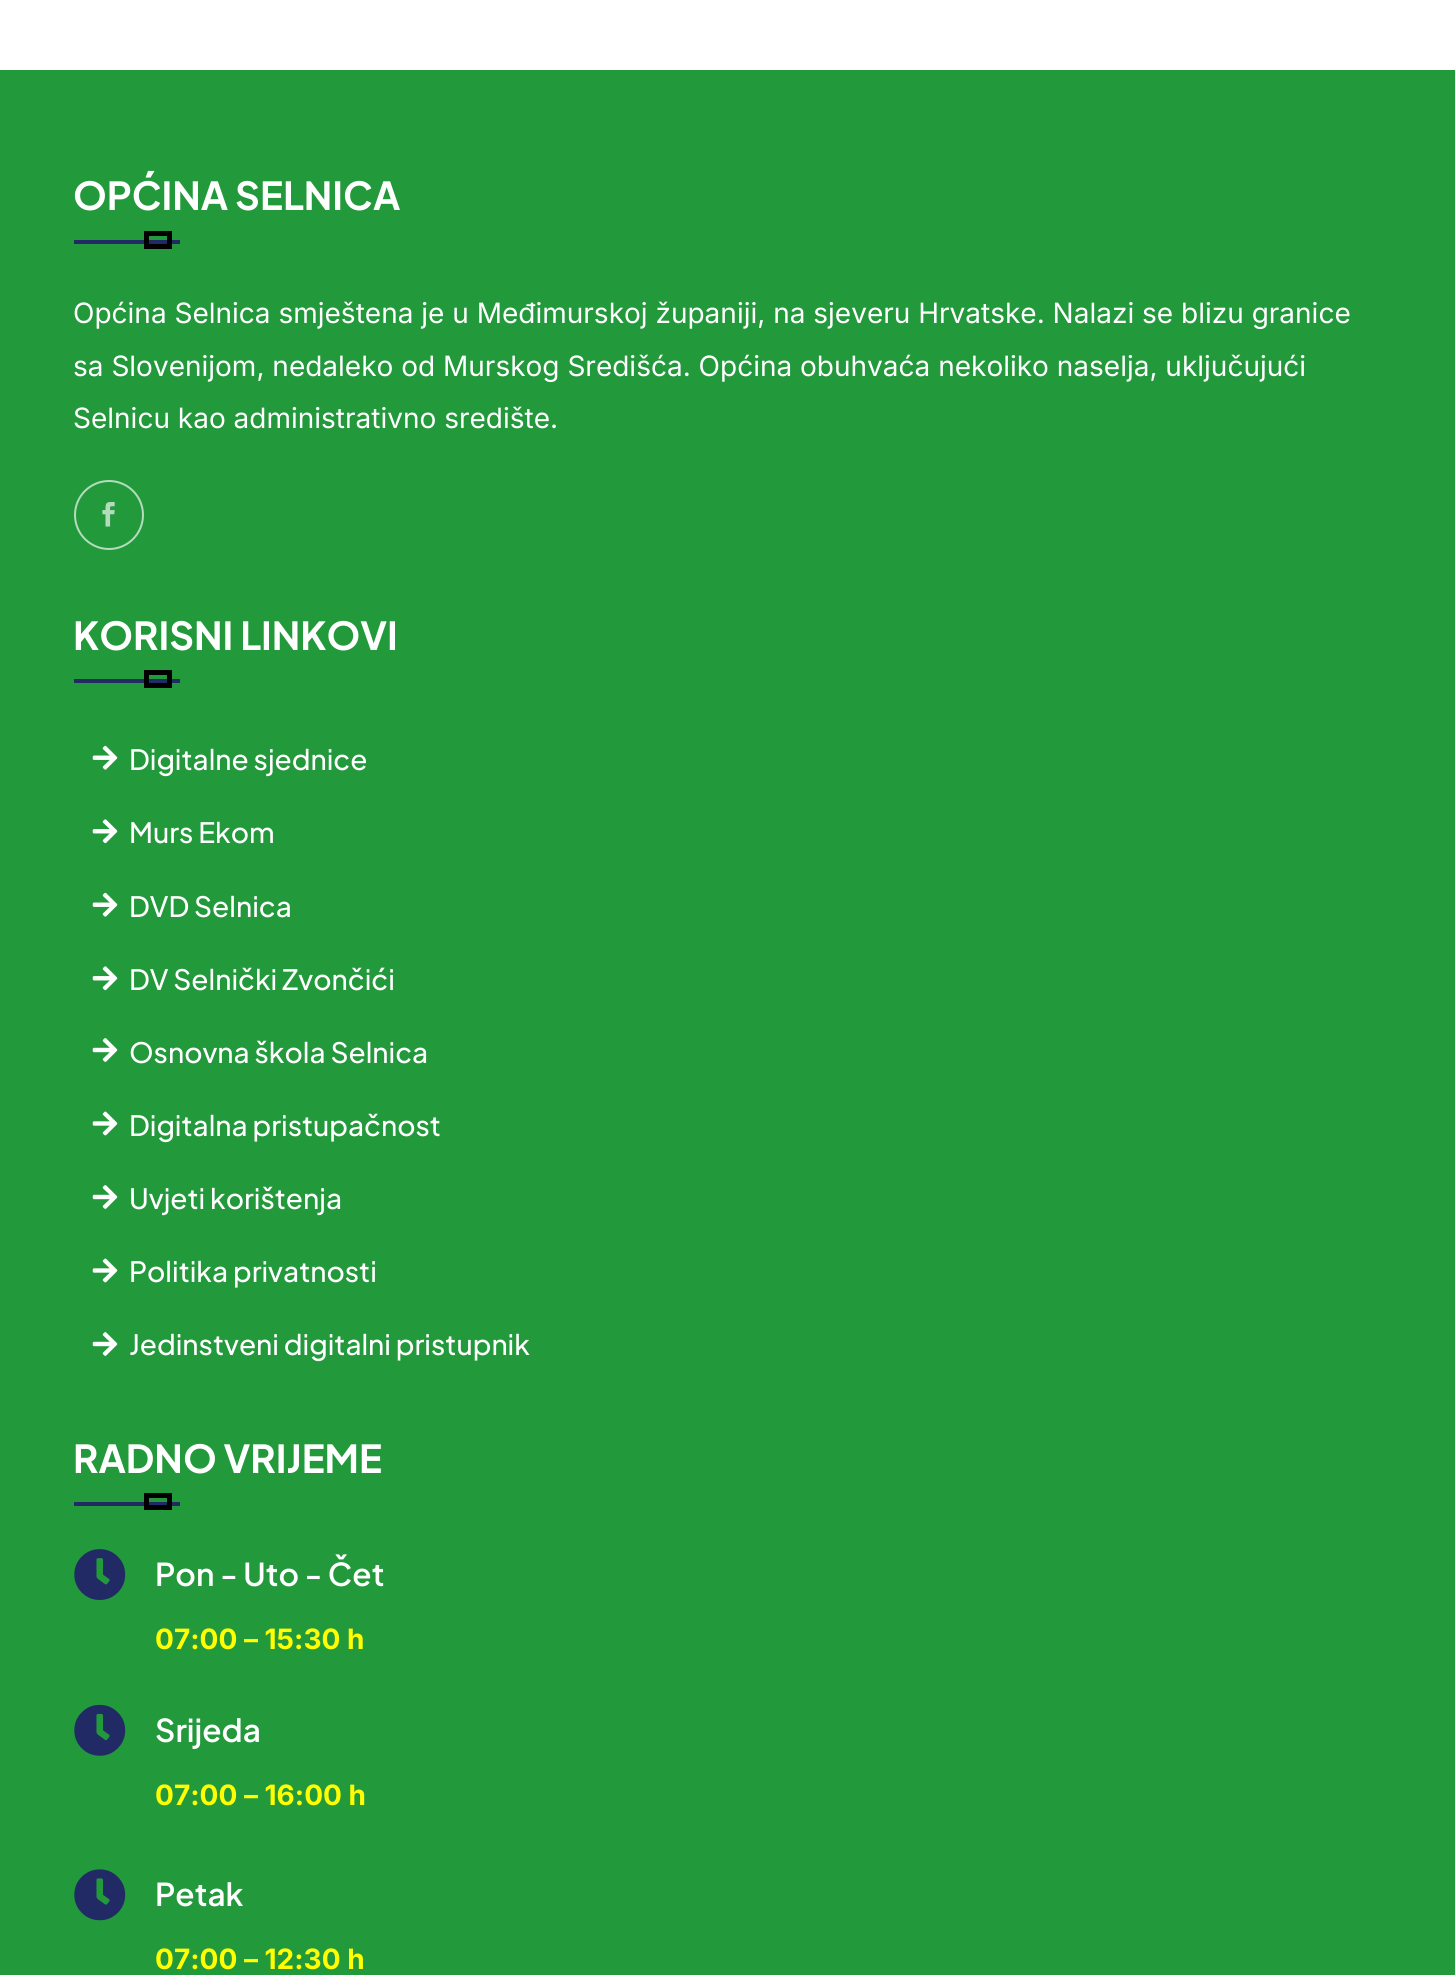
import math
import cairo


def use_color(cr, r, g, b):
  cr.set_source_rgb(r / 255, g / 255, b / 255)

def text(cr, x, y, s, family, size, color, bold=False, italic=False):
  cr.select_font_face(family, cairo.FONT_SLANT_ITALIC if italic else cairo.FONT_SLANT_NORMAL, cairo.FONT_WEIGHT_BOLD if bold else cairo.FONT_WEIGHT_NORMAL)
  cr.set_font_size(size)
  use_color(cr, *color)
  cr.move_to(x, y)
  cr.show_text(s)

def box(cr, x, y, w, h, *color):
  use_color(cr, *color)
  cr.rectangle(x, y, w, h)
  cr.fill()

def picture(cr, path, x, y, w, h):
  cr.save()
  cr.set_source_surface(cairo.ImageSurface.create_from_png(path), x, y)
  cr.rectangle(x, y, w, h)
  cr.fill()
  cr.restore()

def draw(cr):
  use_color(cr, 255, 255, 255)
  cr.paint()
  box(cr, 0, 70, 1455, 1905, 34, 153, 59)
  box(cr, 74, 240, 106, 4, 33, 42, 101)
  cr.rectangle(146.5, 233.5, 23, 13)
  use_color(cr, 0, 0, 0)
  cr.set_line_width(5)
  cr.stroke()
  cr.arc(109, 515, 34, 0, 2 * math.pi)
  use_color(cr, 180, 220, 188)
  cr.set_line_width(2)
  cr.stroke()
  picture(cr, "img_01.png", 102, 502, 13, 25)
  box(cr, 74, 679, 106, 4, 33, 42, 101)
  cr.rectangle(146.5, 672.5, 23, 13)
  use_color(cr, 0, 0, 0)
  cr.set_line_width(5)
  cr.stroke()
  picture(cr, "img_02.png", 92, 745, 26, 25)
  picture(cr, "img_03.png", 92, 819, 26, 25)
  picture(cr, "img_02.png", 92, 892, 26, 25)
  picture(cr, "img_03.png", 92, 966, 26, 25)
  picture(cr, "img_04.png", 92, 1038, 26, 24)
  picture(cr, "img_05.png", 92, 1111, 26, 25)
  picture(cr, "img_04.png", 92, 1185, 26, 24)
  picture(cr, "img_05.png", 92, 1258, 26, 25)
  picture(cr, "img_04.png", 92, 1332, 26, 24)
  box(cr, 74, 1502, 106, 4, 33, 42, 101)
  cr.rectangle(146.5, 1495.5, 23, 12)
  use_color(cr, 0, 0, 0)
  cr.stroke()
  picture(cr, "img_06.png", 74, 1549, 52, 51)
  picture(cr, "img_07.png", 74, 1704, 52, 52)
  picture(cr, "img_08.png", 74, 1869, 52, 52)
  text(cr, 73, 210, "OPĆINA SELNICA", "Plus Jakarta Sans", 38.5, (255, 255, 255), bold=True)
  text(cr, 73, 323, "Općina Selnica smještena je u Međimurskoj županiji, na sjeveru Hrvatske. Nalazi se blizu granice", "Inter", 28, (255, 255, 255))
  text(cr, 73, 376, "sa Slovenijom, nedaleko od Murskog Središća. Općina obuhvaća nekoliko naselja, uključujući", "Inter", 28, (255, 255, 255))
  text(cr, 73, 428, "Selnicu kao administrativno središte.", "Inter", 28, (255, 255, 255))
  text(cr, 73, 650, "KORISNI LINKOVI", "Plus Jakarta Sans", 38.5, (255, 255, 255), bold=True)
  text(cr, 129, 770, "Digitalne sjednice", "Plus Jakarta Sans Medium", 28, (255, 255, 255))
  text(cr, 129, 843, "Murs Ekom", "Plus Jakarta Sans Medium", 28, (255, 255, 255))
  text(cr, 129, 917, "DVD Selnica", "Plus Jakarta Sans Medium", 28, (255, 255, 255))
  text(cr, 129, 990, "DV Selnički Zvončići", "Plus Jakarta Sans Medium", 28, (255, 255, 255))
  text(cr, 129, 1063, "Osnovna škola Selnica", "Plus Jakarta Sans Medium", 28, (255, 255, 255))
  text(cr, 129, 1136, "Digitalna pristupačnost", "Plus Jakarta Sans Medium", 28, (255, 255, 255))
  text(cr, 129, 1209, "Uvjeti korištenja", "Plus Jakarta Sans Medium", 28, (255, 255, 255))
  text(cr, 129, 1282, "Politika privatnosti", "Plus Jakarta Sans Medium", 28, (255, 255, 255))
  text(cr, 129, 1355, "Jedinstveni digitalni pristupnik", "Plus Jakarta Sans Medium", 28, (255, 255, 255))
  text(cr, 73, 1473, "RADNO VRIJEME", "Plus Jakarta Sans", 38.5, (255, 255, 255), bold=True)
  text(cr, 155, 1586, "Pon - Uto - Čet", "Plus Jakarta Sans SemiBold", 31.5, (255, 255, 255))
  text(cr, 155, 1649, "07:00 – 15:30 h", "Inter", 28, (255, 255, 0), bold=True)
  text(cr, 155, 1742, "Srijeda", "Plus Jakarta Sans SemiBold", 31.5, (255, 255, 255))
  text(cr, 155, 1805, "07:00 – 16:00 h", "Inter", 28, (255, 255, 0), bold=True)
  text(cr, 155, 1906, "Petak", "Plus Jakarta Sans SemiBold", 31.5, (255, 255, 255))
  text(cr, 155, 1969, "07:00 – 12:30 h", "Inter", 28, (255, 255, 0), bold=True)


surface = cairo.ImageSurface(cairo.FORMAT_RGB24, 1455, 1975)
cr = cairo.Context(surface)
options = cairo.FontOptions()
options.set_hint_metrics(cairo.HINT_METRICS_OFF)
options.set_hint_style(cairo.HINT_STYLE_NONE)
cr.set_font_options(options)
cr.set_miter_limit(4)
draw(cr)
surface.write_to_png("out.png")
